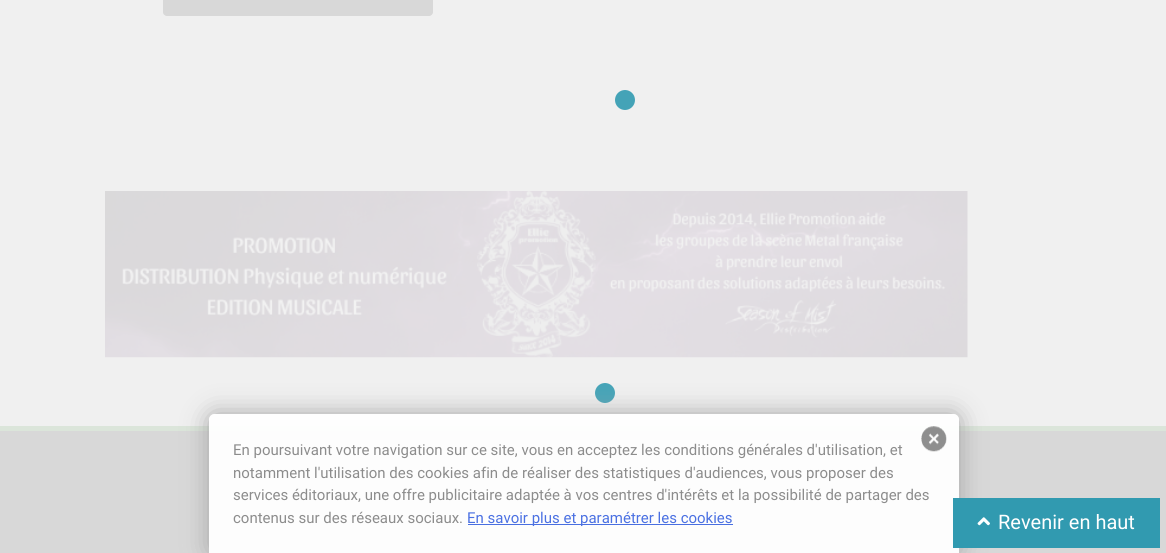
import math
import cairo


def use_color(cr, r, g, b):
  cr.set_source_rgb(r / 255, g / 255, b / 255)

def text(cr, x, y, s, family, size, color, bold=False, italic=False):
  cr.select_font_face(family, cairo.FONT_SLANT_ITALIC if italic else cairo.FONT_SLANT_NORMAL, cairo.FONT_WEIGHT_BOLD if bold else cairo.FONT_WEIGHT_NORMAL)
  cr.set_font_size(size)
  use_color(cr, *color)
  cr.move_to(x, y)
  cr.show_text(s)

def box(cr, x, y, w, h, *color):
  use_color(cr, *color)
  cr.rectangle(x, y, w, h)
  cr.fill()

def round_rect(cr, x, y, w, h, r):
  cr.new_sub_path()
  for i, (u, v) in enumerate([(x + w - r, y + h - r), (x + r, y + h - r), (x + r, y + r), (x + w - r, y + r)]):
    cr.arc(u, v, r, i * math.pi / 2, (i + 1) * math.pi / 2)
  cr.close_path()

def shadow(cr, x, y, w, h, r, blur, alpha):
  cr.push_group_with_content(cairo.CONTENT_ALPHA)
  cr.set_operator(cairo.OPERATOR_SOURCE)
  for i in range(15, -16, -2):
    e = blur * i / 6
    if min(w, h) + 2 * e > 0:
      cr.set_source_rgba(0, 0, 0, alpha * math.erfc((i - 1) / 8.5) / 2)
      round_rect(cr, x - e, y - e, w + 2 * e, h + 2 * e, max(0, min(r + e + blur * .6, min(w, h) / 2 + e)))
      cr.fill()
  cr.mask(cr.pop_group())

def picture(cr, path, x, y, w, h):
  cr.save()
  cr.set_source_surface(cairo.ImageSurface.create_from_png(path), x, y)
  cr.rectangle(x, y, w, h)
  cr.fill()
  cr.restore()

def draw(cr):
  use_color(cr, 240, 240, 240)
  cr.paint()
  use_color(cr, 70, 164, 184)
  cr.arc(605, 393, 10, 0, 2 * math.pi)
  cr.fill()
  box(cr, 0, 426, 1166, 5, 219, 229, 218)
  box(cr, 0, 431, 1166, 122, 216, 216, 216)
  cr.save()
  cr.set_fill_rule(cairo.FILL_RULE_EVEN_ODD)
  cr.new_path()
  cr.move_to(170, 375)
  cr.line_to(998, 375)
  cr.line_to(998, 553)
  cr.line_to(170, 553)
  cr.close_path()
  cr.move_to(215, 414)
  cr.line_to(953, 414)
  cr.curve_to(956.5, 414, 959, 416.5, 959, 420)
  cr.line_to(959, 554)
  cr.line_to(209, 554)
  cr.line_to(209, 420)
  cr.curve_to(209, 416.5, 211.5, 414, 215, 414)
  cr.close_path()
  cr.clip()
  use_color(cr, 161, 161, 161)
  shadow(cr, 209, 414, 750, 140, 6, 12.5, 0.95)
  cr.restore()
  cr.set_source_rgba(1, 1, 1, 0.95)
  cr.new_path()
  cr.move_to(215, 414)
  cr.line_to(953, 414)
  cr.curve_to(956.5, 414, 959, 416.5, 959, 420)
  cr.line_to(959, 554)
  cr.line_to(209, 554)
  cr.line_to(209, 420)
  cr.curve_to(209, 416.5, 211.5, 414, 215, 414)
  cr.close_path()
  cr.fill()
  picture(cr, "img_01.png", 921, 426, 26, 26)
  box(cr, 468, 524, 265, 1, 73, 111, 225)
  use_color(cr, 216, 216, 216)
  round_rect(cr, 163, -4, 270, 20, 4)
  cr.fill()
  picture(cr, "img_02.png", 105, 191, 863, 167)
  use_color(cr, 68, 163, 183)
  cr.arc(625, 100, 10, 0, 2 * math.pi)
  cr.fill()
  box(cr, 953, 498, 207, 50, 49, 154, 176)
  picture(cr, "img_03.png", 977, 517, 13, 9)
  text(cr, 233, 455, "En poursuivant votre navigation sur ce site, vous en acceptez les conditions générales d'utilisation, et", "Roboto", 15, (140, 140, 140))
  text(cr, 233, 478, "notamment l'utilisation des cookies afin de réaliser des statistiques d'audiences, vous proposer des", "Roboto", 15, (140, 140, 140))
  text(cr, 233, 500, "services éditoriaux, une offre publicitaire adaptée à vos centres d'intérêts et la possibilité de partager des", "Roboto", 15, (140, 140, 140))
  text(cr, 233, 523, "contenus sur des réseaux sociaux.", "Roboto", 15, (140, 140, 140))
  text(cr, 467, 523, "En savoir plus et paramétrer les cookies", "Roboto", 15, (74, 112, 226))
  text(cr, 998, 529, "Revenir en haut", "Roboto", 20, (255, 255, 255))


surface = cairo.ImageSurface(cairo.FORMAT_RGB24, 1166, 553)
cr = cairo.Context(surface)
options = cairo.FontOptions()
options.set_hint_metrics(cairo.HINT_METRICS_OFF)
options.set_hint_style(cairo.HINT_STYLE_NONE)
cr.set_font_options(options)
cr.set_miter_limit(4)
draw(cr)
surface.write_to_png("out.png")
